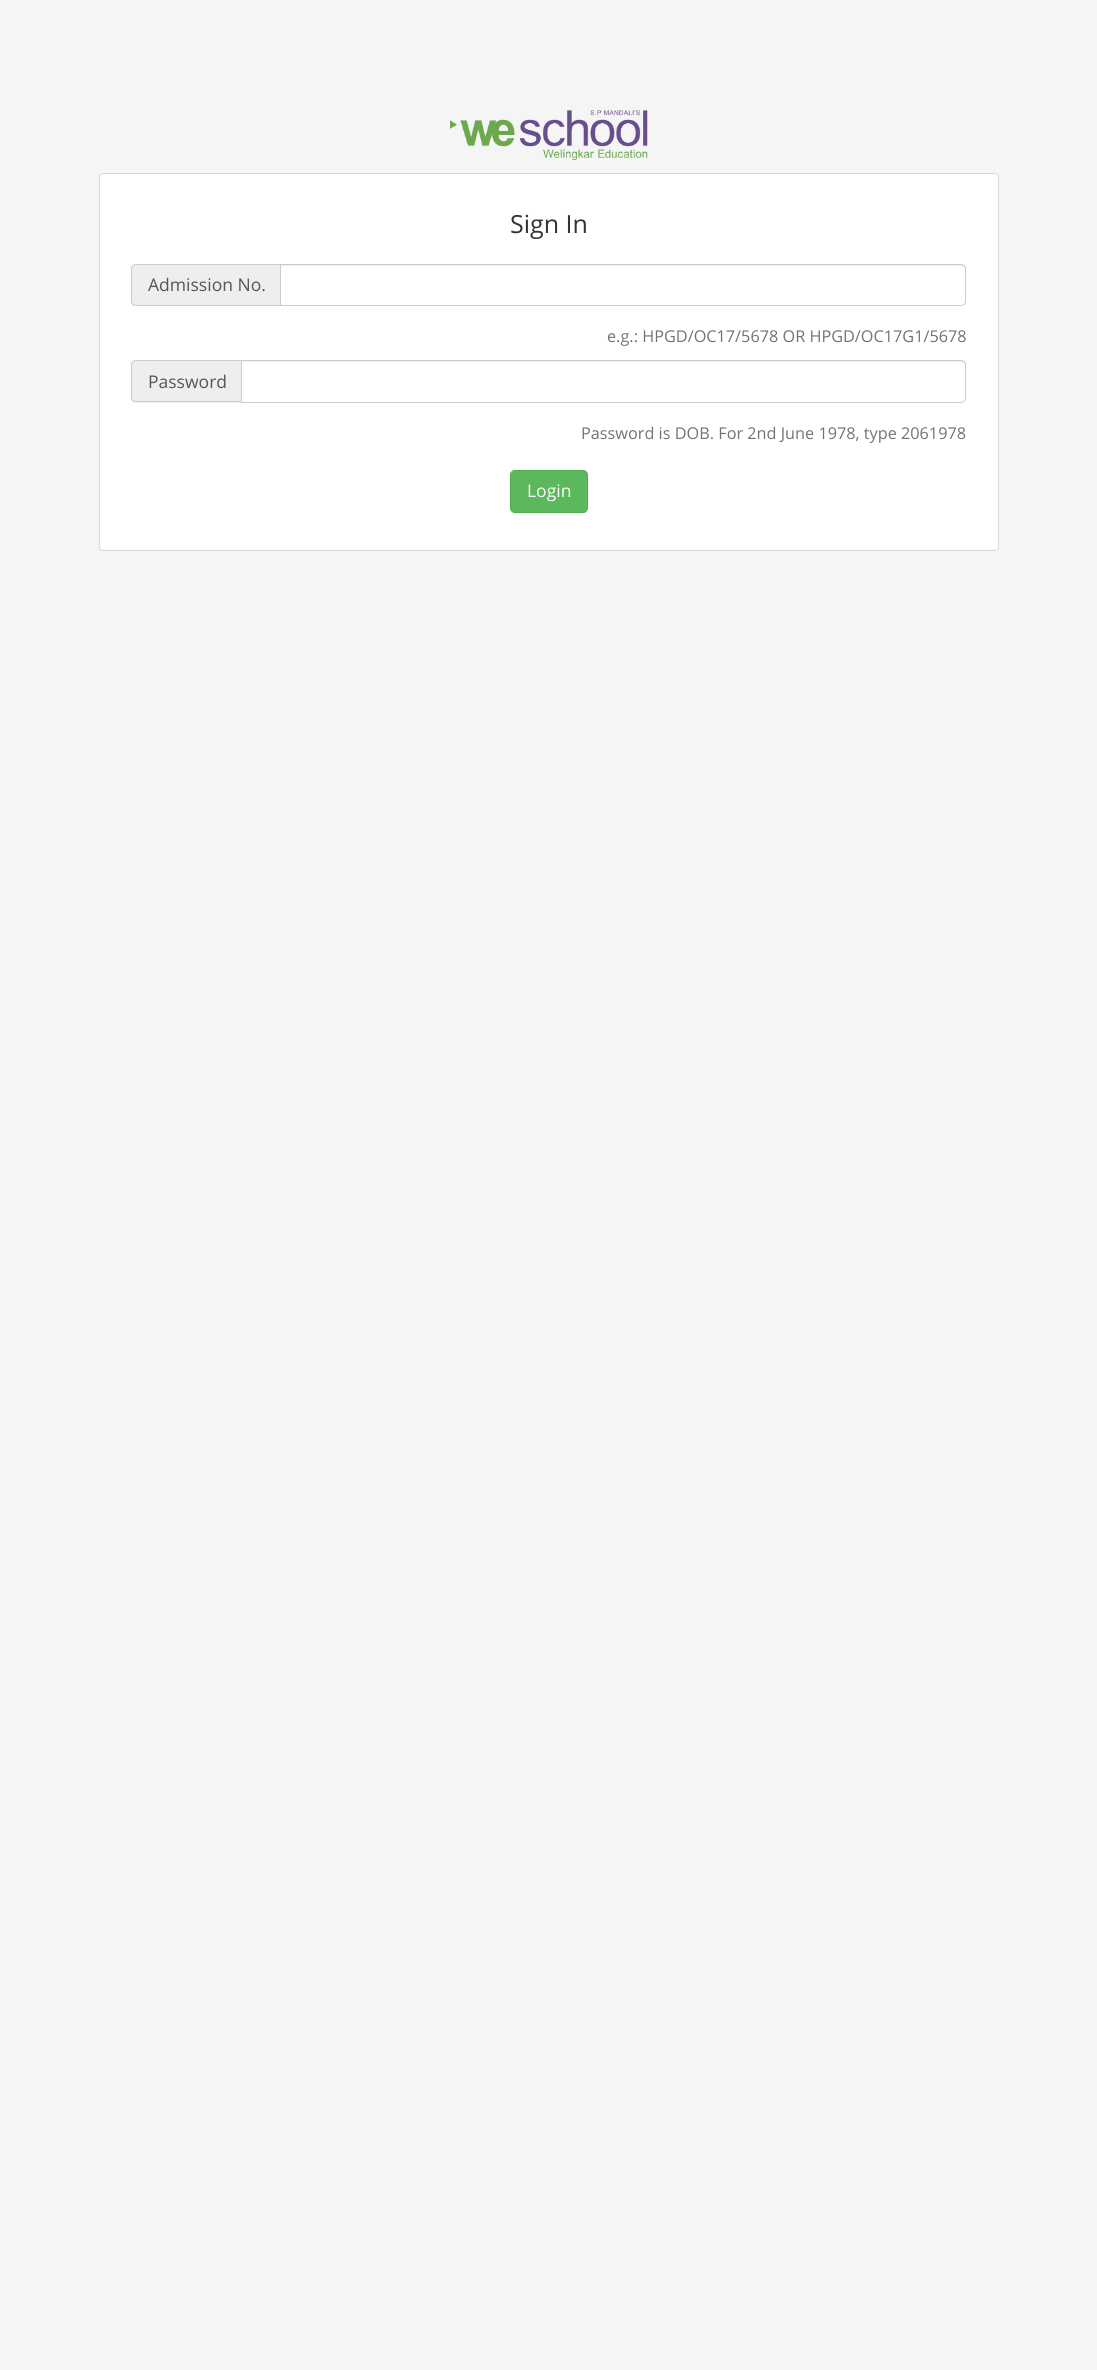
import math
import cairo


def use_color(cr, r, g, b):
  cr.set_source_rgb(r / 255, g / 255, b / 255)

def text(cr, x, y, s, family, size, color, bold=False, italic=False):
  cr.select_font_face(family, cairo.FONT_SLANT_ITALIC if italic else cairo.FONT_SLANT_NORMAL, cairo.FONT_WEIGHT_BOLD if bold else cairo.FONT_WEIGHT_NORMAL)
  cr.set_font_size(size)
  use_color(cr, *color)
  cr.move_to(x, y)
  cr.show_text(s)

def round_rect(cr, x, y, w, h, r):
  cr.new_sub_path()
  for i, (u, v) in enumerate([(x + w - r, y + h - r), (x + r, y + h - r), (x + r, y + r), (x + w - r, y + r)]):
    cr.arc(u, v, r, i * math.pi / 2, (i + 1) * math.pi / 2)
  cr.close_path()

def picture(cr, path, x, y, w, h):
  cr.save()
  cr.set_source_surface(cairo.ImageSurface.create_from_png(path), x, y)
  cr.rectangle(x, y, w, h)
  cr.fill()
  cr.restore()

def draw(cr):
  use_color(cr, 245, 245, 245)
  cr.paint()
  picture(cr, "img_01.png", 450, 110, 198, 50)
  use_color(cr, 255, 255, 255)
  round_rect(cr, 99.5, 173.5, 899, 377, 3.5)
  cr.fill_preserve()
  use_color(cr, 216, 216, 216)
  cr.set_line_width(1)
  cr.stroke()
  use_color(cr, 238, 238, 238)
  cr.new_path()
  cr.move_to(136, 264)
  cr.line_to(280, 264)
  cr.line_to(280, 306)
  cr.line_to(136, 306)
  cr.curve_to(133, 306, 131, 304, 131, 301)
  cr.line_to(131, 269)
  cr.curve_to(131, 266, 133, 264, 136, 264)
  cr.close_path()
  cr.fill()
  use_color(cr, 204, 204, 204)
  cr.set_fill_rule(cairo.FILL_RULE_EVEN_ODD)
  cr.new_path()
  cr.move_to(136, 264)
  cr.line_to(280, 264)
  cr.line_to(280, 306)
  cr.line_to(136, 306)
  cr.curve_to(133, 306, 131, 304, 131, 301)
  cr.line_to(131, 269)
  cr.curve_to(131, 266, 133, 264, 136, 264)
  cr.close_path()
  cr.move_to(136, 265)
  cr.line_to(280, 265)
  cr.line_to(280, 305)
  cr.line_to(136, 305)
  cr.curve_to(134, 305, 132, 303, 132, 301)
  cr.line_to(132, 269)
  cr.curve_to(132, 267, 134, 265, 136, 265)
  cr.close_path()
  cr.fill()
  use_color(cr, 236, 236, 236)
  cr.set_fill_rule(cairo.FILL_RULE_WINDING)
  cr.new_path()
  cr.move_to(281, 266)
  cr.line_to(961, 266)
  cr.curve_to(963, 266, 965, 268, 965, 270)
  cr.line_to(965, 269)
  cr.curve_to(965, 267, 963, 265, 961, 265)
  cr.line_to(281, 265)
  cr.close_path()
  cr.fill()
  cr.new_path()
  cr.move_to(280.5, 264.5)
  cr.line_to(961, 264.5)
  cr.curve_to(963.5, 264.5, 965.5, 266.5, 965.5, 269)
  cr.line_to(965.5, 301)
  cr.curve_to(965.5, 303.5, 963.5, 305.5, 961, 305.5)
  cr.line_to(280.5, 305.5)
  cr.close_path()
  use_color(cr, 204, 204, 204)
  cr.stroke()
  use_color(cr, 238, 238, 238)
  cr.new_path()
  cr.move_to(136, 360)
  cr.line_to(241, 360)
  cr.line_to(241, 403)
  cr.line_to(136, 403)
  cr.curve_to(133, 403, 131, 401, 131, 398)
  cr.line_to(131, 365)
  cr.curve_to(131, 362, 133, 360, 136, 360)
  cr.close_path()
  cr.fill()
  use_color(cr, 204, 204, 204)
  cr.set_fill_rule(cairo.FILL_RULE_EVEN_ODD)
  cr.new_path()
  cr.move_to(136, 360)
  cr.line_to(241, 360)
  cr.line_to(241, 402)
  cr.line_to(136, 402)
  cr.curve_to(133, 402, 131, 400, 131, 398)
  cr.line_to(131, 365)
  cr.curve_to(131, 362, 133, 360, 136, 360)
  cr.close_path()
  cr.move_to(136, 361)
  cr.line_to(241, 361)
  cr.line_to(241, 401)
  cr.line_to(136, 401)
  cr.curve_to(134, 401, 132, 400, 132, 398)
  cr.line_to(132, 365)
  cr.curve_to(132, 363, 134, 361, 136, 361)
  cr.close_path()
  cr.fill()
  use_color(cr, 236, 236, 236)
  cr.set_fill_rule(cairo.FILL_RULE_WINDING)
  cr.new_path()
  cr.move_to(243, 361)
  cr.line_to(243, 362)
  cr.line_to(961, 362)
  cr.curve_to(963, 362, 965, 364, 965, 366)
  cr.curve_to(965, 363, 964, 361, 961, 361)
  cr.close_path()
  cr.fill()
  cr.new_path()
  cr.move_to(241.5, 360.5)
  cr.line_to(961, 360.5)
  cr.curve_to(963.5, 360.5, 965.5, 362.5, 965.5, 365)
  cr.line_to(965.5, 398)
  cr.curve_to(965.5, 400.5, 963.5, 402.5, 961, 402.5)
  cr.line_to(241.5, 402.5)
  cr.close_path()
  use_color(cr, 204, 204, 204)
  cr.stroke()
  use_color(cr, 92, 184, 92)
  round_rect(cr, 510.5, 470.5, 77, 42, 4.5)
  cr.fill_preserve()
  use_color(cr, 76, 174, 76)
  cr.stroke()
  text(cr, 510, 233, "Sign In", "Open Sans", 25, (51, 51, 51))
  text(cr, 148, 291, "Admission No.", "Open Sans", 17.5, (85, 85, 85))
  text(cr, 607, 342, "e.g.: HPGD/OC17/5678 OR HPGD/OC17G1/5678", "Open Sans", 16.25, (115, 115, 115))
  text(cr, 148, 388, "Password", "Open Sans", 17.5, (85, 85, 85))
  text(cr, 581, 439, "Password is DOB. For 2nd June 1978, type 2061978", "Open Sans", 16.25, (115, 115, 115))
  text(cr, 527, 497, "Login", "Open Sans", 17.5, (255, 255, 255))


surface = cairo.ImageSurface(cairo.FORMAT_RGB24, 1097, 2370)
cr = cairo.Context(surface)
options = cairo.FontOptions()
options.set_hint_metrics(cairo.HINT_METRICS_OFF)
options.set_hint_style(cairo.HINT_STYLE_NONE)
cr.set_font_options(options)
cr.set_miter_limit(4)
draw(cr)
surface.write_to_png("out.png")
